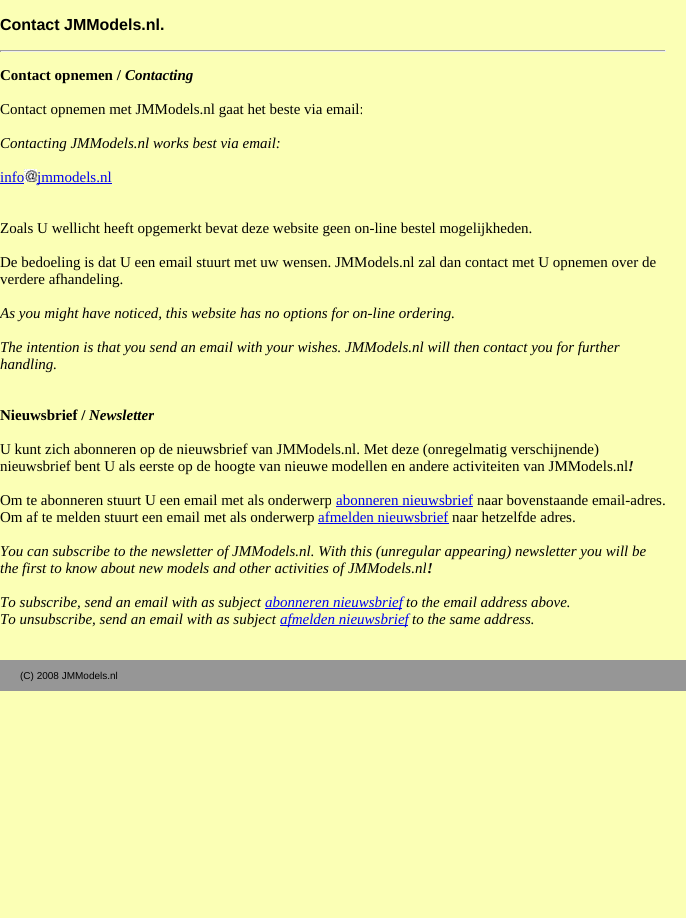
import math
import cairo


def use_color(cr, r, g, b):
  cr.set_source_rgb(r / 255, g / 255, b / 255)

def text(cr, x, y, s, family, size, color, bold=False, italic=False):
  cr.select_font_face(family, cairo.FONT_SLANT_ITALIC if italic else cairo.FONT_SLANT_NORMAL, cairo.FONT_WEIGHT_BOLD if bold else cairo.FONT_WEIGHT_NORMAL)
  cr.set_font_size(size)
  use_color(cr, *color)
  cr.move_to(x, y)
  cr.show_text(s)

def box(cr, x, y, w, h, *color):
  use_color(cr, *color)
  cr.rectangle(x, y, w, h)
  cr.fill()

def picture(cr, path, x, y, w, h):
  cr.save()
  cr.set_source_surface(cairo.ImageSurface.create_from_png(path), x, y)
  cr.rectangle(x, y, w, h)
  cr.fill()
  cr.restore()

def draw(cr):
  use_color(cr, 251, 255, 181)
  cr.paint()
  box(cr, 0, 50, 666, 1, 159, 159, 159)
  box(cr, 665, 50, 1, 2, 238, 238, 238)
  box(cr, 0, 51, 666, 1, 238, 238, 238)
  box(cr, 0, 50, 1, 2, 159, 159, 159)
  box(cr, 0, 183, 24, 1, 0, 0, 238)
  picture(cr, "img_01.png", 24, 169, 13, 13)
  box(cr, 37, 183, 75, 1, 0, 0, 238)
  box(cr, 336, 506, 137, 1, 0, 0, 238)
  box(cr, 318, 523, 131, 1, 0, 0, 238)
  box(cr, 265, 608, 137, 1, 0, 0, 238)
  box(cr, 280, 625, 128, 1, 0, 0, 238)
  box(cr, 0, 660, 686, 31, 150, 150, 150)
  text(cr, 0, 30, "Contact JMModels.nl.", "Liberation Sans", 16, (0, 0, 0), bold=True)
  text(cr, 0, 80, "Contact opnemen /", "Liberation Serif", 15, (0, 0, 0), bold=True)
  text(cr, 125, 80, "Contacting", "Liberation Serif", 15, (0, 0, 0), bold=True, italic=True)
  text(cr, 0, 114, "Contact opnemen met JMModels.nl gaat het beste via email:", "Liberation Serif", 15, (0, 0, 0))
  text(cr, 0, 148, "Contacting JMModels.nl works best via email:", "Liberation Serif", 15, (0, 0, 0), italic=True)
  text(cr, 0, 182, "info", "Liberation Serif", 15, (0, 0, 238))
  text(cr, 37, 182, "jmmodels.nl", "Liberation Serif", 15, (0, 0, 238))
  text(cr, 0, 233, "Zoals U wellicht heeft opgemerkt bevat deze website geen on-line bestel mogelijkheden.", "Liberation Serif", 15, (0, 0, 0))
  text(cr, 0, 267, "De bedoeling is dat U een email stuurt met uw wensen. JMModels.nl zal dan contact met U opnemen over de", "Liberation Serif", 15, (0, 0, 0))
  text(cr, 0, 284, "verdere afhandeling.", "Liberation Serif", 15, (0, 0, 0))
  text(cr, 0, 318, "As you might have noticed, this website has no options for on-line ordering.", "Liberation Serif", 15, (0, 0, 0), italic=True)
  text(cr, 0, 352, "The intention is that you send an email with your wishes. JMModels.nl will then contact you for further", "Liberation Serif", 15, (0, 0, 0), italic=True)
  text(cr, 0, 369, "handling.", "Liberation Serif", 15, (0, 0, 0), italic=True)
  text(cr, 0, 420, "Nieuwsbrief /", "Liberation Serif", 15, (0, 0, 0), bold=True)
  text(cr, 89, 420, "Newsletter", "Liberation Serif", 15, (0, 0, 0), bold=True, italic=True)
  text(cr, 0, 454, "U kunt zich abonneren op de nieuwsbrief van JMModels.nl. Met deze (onregelmatig verschijnende)", "Liberation Serif", 15, (0, 0, 0))
  text(cr, 0, 471, "nieuwsbrief bent U als eerste op de hoogte van nieuwe modellen en andere activiteiten van JMModels.nl", "Liberation Serif", 15, (0, 0, 0))
  text(cr, 628, 471, "!", "Liberation Serif", 15, (0, 0, 0), bold=True, italic=True)
  text(cr, 0, 505, "Om te abonneren stuurt U een email met als onderwerp", "Liberation Serif", 15, (0, 0, 0))
  text(cr, 336, 505, "abonneren nieuwsbrief", "Liberation Serif", 15, (0, 0, 238))
  text(cr, 477, 505, "naar bovenstaande email-adres.", "Liberation Serif", 15, (0, 0, 0))
  text(cr, 0, 522, "Om af te melden stuurt een email met als onderwerp", "Liberation Serif", 15, (0, 0, 0))
  text(cr, 318, 522, "afmelden nieuwsbrief", "Liberation Serif", 15, (0, 0, 238))
  text(cr, 452, 522, "naar hetzelfde adres.", "Liberation Serif", 15, (0, 0, 0))
  text(cr, 0, 556, "You can subscribe to the newsletter of JMModels.nl. With this (unregular appearing) newsletter you will be", "Liberation Serif", 15, (0, 0, 0), italic=True)
  text(cr, 0, 573, "the first to know about new models and other activities of JMModels.nl", "Liberation Serif", 15, (0, 0, 0), italic=True)
  text(cr, 427, 573, "!", "Liberation Serif", 15, (0, 0, 0), bold=True, italic=True)
  text(cr, 0, 607, "To subscribe, send an email with as subject", "Liberation Serif", 15, (0, 0, 0), italic=True)
  text(cr, 265, 607, "abonneren nieuwsbrief", "Liberation Serif", 15, (0, 0, 238), italic=True)
  text(cr, 406, 607, "to the email address above.", "Liberation Serif", 15, (0, 0, 0), italic=True)
  text(cr, 0, 624, "To unsubscribe, send an email with as subject", "Liberation Serif", 15, (0, 0, 0), italic=True)
  text(cr, 280, 624, "afmelden nieuwsbrief", "Liberation Serif", 15, (0, 0, 238), italic=True)
  text(cr, 412, 624, "to the same address.", "Liberation Serif", 15, (0, 0, 0), italic=True)
  text(cr, 20, 679, "(C) 2008 JMModels.nl", "Liberation Sans", 10, (0, 0, 0))


surface = cairo.ImageSurface(cairo.FORMAT_RGB24, 686, 918)
cr = cairo.Context(surface)
options = cairo.FontOptions()
options.set_hint_metrics(cairo.HINT_METRICS_OFF)
options.set_hint_style(cairo.HINT_STYLE_NONE)
cr.set_font_options(options)
cr.set_miter_limit(4)
draw(cr)
surface.write_to_png("out.png")
